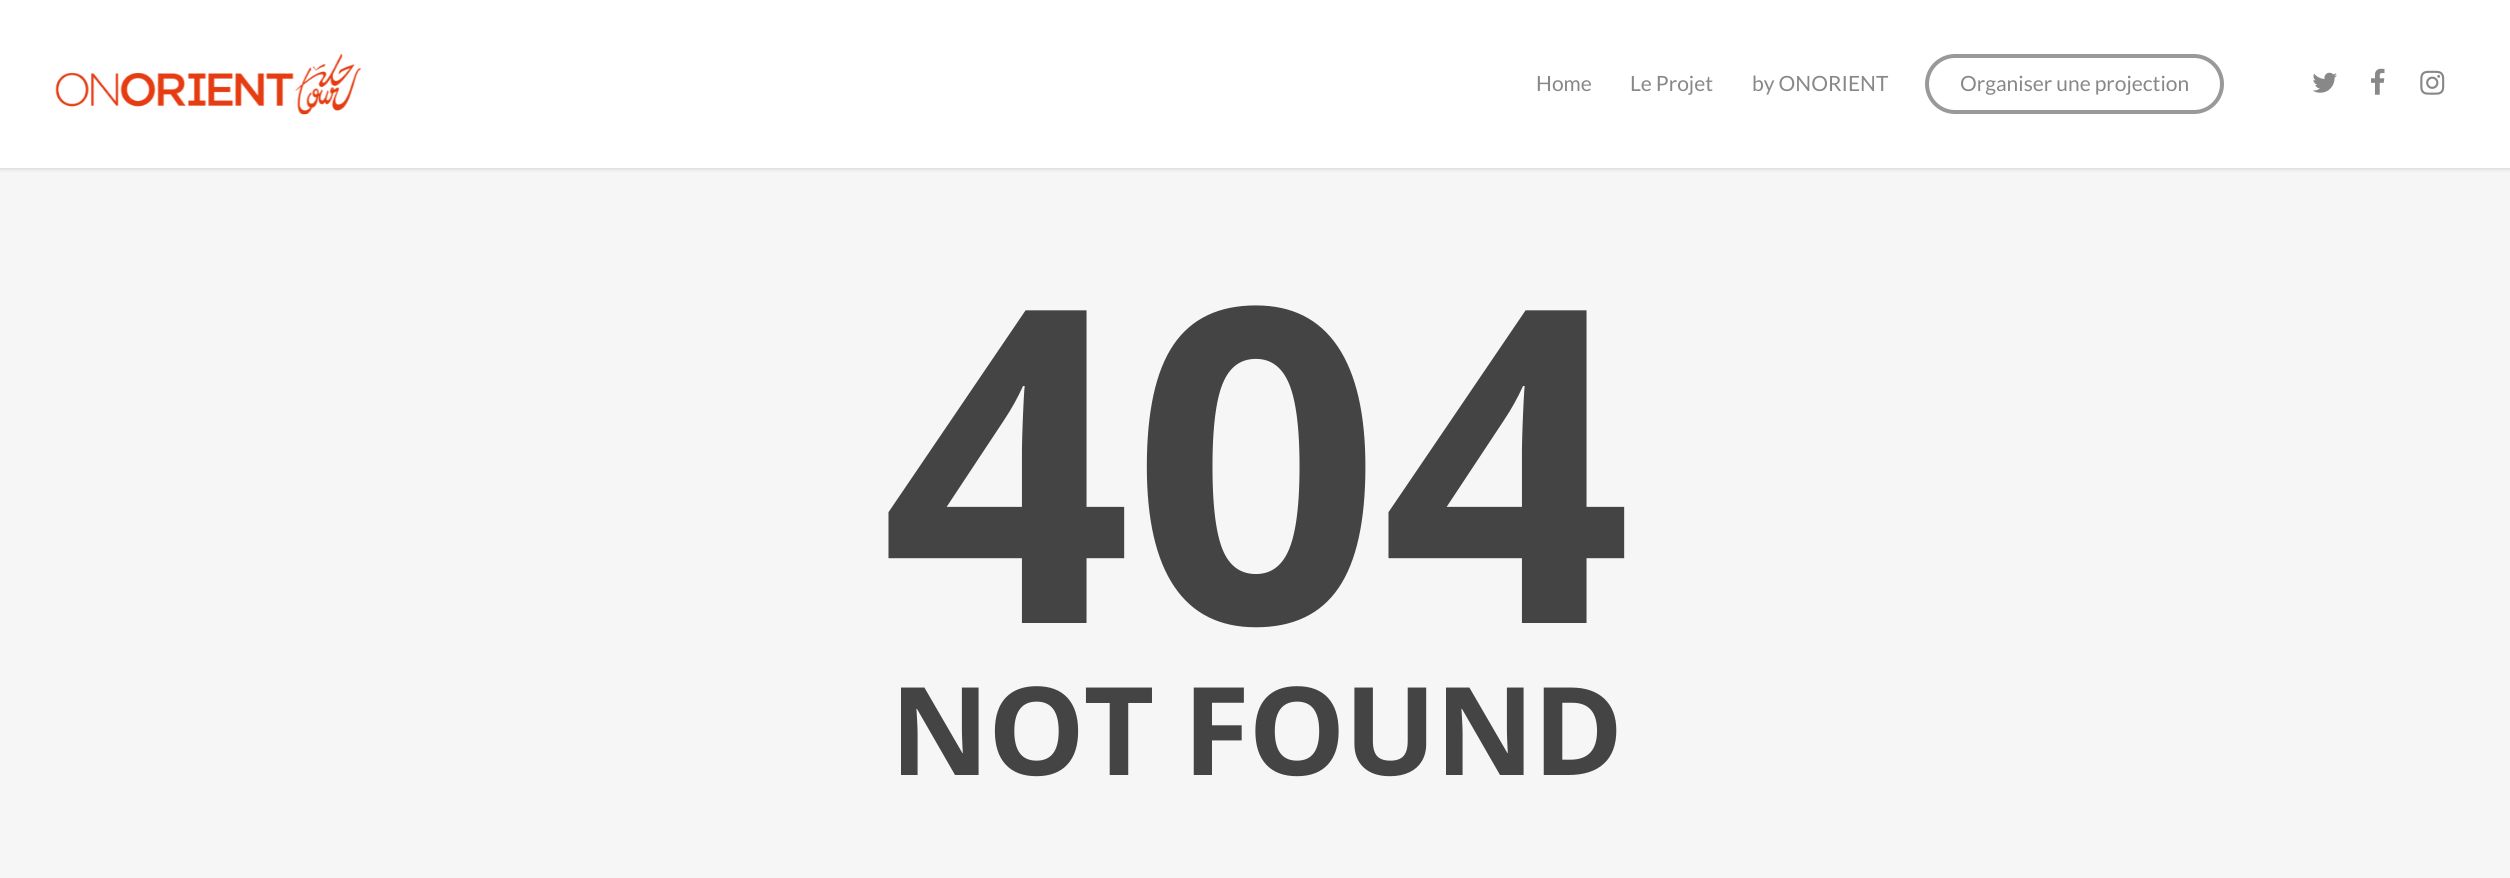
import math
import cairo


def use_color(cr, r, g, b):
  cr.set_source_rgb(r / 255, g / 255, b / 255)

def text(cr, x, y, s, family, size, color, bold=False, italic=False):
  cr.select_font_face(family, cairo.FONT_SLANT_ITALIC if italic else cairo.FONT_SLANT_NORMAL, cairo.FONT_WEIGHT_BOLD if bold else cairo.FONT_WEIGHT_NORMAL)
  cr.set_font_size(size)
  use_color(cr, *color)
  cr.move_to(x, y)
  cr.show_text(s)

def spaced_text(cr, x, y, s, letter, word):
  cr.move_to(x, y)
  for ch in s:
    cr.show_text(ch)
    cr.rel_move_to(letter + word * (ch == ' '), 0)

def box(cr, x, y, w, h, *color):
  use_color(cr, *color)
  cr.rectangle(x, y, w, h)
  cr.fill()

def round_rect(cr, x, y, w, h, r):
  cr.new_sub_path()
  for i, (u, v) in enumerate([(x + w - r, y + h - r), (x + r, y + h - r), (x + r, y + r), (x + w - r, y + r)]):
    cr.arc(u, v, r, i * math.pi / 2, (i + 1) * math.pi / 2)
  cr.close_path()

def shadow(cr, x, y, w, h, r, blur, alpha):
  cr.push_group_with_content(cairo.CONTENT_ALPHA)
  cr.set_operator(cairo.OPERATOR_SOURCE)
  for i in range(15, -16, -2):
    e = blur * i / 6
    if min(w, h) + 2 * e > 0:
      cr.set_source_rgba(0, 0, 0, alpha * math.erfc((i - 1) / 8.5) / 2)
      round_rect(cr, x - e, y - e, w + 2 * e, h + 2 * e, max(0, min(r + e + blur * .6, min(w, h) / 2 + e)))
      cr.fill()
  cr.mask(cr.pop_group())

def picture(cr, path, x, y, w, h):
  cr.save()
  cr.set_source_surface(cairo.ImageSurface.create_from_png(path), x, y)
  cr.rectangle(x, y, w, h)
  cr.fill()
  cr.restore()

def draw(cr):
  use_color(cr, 246, 246, 246)
  cr.paint()
  use_color(cr, 0, 0, 0)
  shadow(cr, 0, 0, 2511, 168, 0, 2.5, 0.22)
  box(cr, 0, 0, 2510, 168, 255, 255, 255)
  picture(cr, "img_01.png", 55, 53, 307, 62)
  round_rect(cr, 1927, 56, 295, 56, 28)
  use_color(cr, 153, 153, 153)
  cr.set_line_width(4)
  cr.stroke()
  picture(cr, "img_02.png", 2312, 72, 25, 21)
  picture(cr, "img_03.png", 2371, 68, 14, 27)
  picture(cr, "img_04.png", 2420, 70, 25, 25)
  text(cr, 1536, 91, "Home", "Lato", 21, (136, 136, 136))
  text(cr, 1630, 91, "Le Projet", "Lato", 21, (136, 136, 136))
  text(cr, 1752, 91, "by ONORIENT", "Lato", 21, (136, 136, 136))
  text(cr, 1960, 91, "Organiser une projection", "Lato", 21, (136, 136, 136))
  text(cr, 881, 623, "404", "Open Sans", 438, (68, 68, 68), bold=True)
  cr.set_font_size(122.5)
  spaced_text(cr, 890, 775, "NOT FOUND", -1.75, 0)


surface = cairo.ImageSurface(cairo.FORMAT_RGB24, 2510, 878)
cr = cairo.Context(surface)
options = cairo.FontOptions()
options.set_hint_metrics(cairo.HINT_METRICS_OFF)
options.set_hint_style(cairo.HINT_STYLE_NONE)
cr.set_font_options(options)
cr.set_miter_limit(4)
draw(cr)
surface.write_to_png("out.png")
